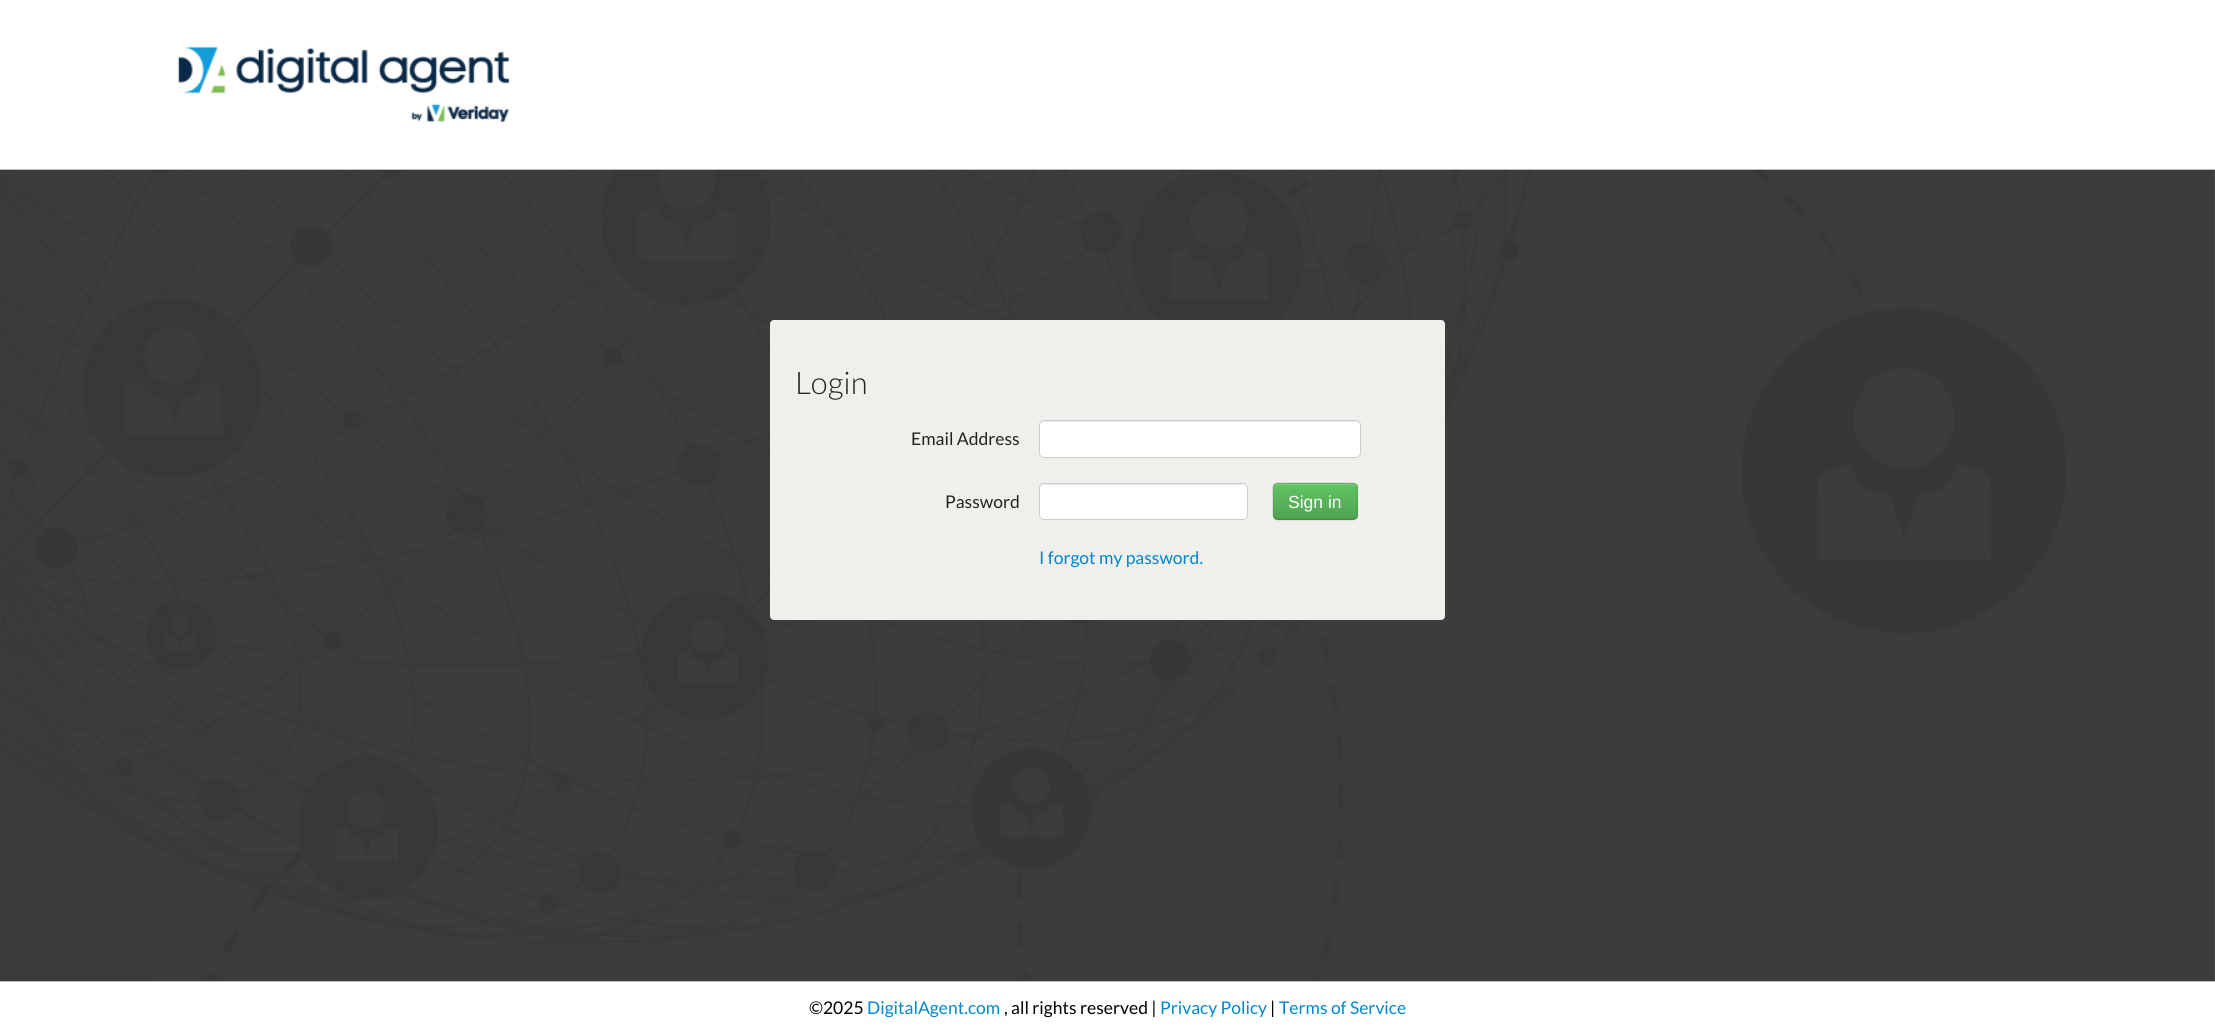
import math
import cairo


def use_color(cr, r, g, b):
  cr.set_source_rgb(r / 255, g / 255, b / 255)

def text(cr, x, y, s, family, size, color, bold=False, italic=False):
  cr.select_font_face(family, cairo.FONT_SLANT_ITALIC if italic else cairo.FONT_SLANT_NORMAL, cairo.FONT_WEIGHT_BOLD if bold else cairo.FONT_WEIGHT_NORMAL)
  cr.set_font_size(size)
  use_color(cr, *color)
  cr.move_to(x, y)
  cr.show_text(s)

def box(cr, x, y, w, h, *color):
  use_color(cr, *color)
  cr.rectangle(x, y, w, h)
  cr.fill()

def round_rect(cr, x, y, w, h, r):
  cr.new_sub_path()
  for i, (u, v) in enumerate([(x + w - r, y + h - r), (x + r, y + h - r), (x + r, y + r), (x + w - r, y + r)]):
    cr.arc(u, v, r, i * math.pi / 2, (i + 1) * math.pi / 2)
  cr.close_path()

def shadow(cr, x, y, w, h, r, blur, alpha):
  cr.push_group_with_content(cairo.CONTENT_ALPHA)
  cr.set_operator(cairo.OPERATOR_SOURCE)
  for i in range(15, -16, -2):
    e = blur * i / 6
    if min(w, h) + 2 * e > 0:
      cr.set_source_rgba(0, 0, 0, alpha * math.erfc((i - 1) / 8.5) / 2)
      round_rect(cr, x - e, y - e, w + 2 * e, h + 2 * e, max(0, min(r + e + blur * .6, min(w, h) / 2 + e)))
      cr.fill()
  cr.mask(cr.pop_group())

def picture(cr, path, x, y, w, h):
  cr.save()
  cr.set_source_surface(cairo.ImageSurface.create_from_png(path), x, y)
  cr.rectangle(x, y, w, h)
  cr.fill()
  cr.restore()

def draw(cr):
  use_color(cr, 255, 255, 255)
  cr.paint()
  picture(cr, "img_01.png", 0, 170, 2215, 811)
  box(cr, 0, 169, 2215, 1, 187, 187, 187)
  picture(cr, "img_02.png", 178, 46, 332, 77)
  use_color(cr, 239, 239, 235)
  round_rect(cr, 770, 320, 675, 300, 4)
  cr.fill()
  use_color(cr, 255, 255, 255)
  round_rect(cr, 1039, 420, 322, 38, 5)
  cr.fill()
  use_color(cr, 236, 236, 236)
  cr.new_path()
  cr.move_to(1044, 422)
  cr.line_to(1356, 422)
  cr.curve_to(1358, 422, 1360, 424, 1360, 426)
  cr.line_to(1360, 425)
  cr.curve_to(1360, 423, 1358, 421, 1356, 421)
  cr.line_to(1044, 421)
  cr.curve_to(1042, 421, 1040, 423, 1040, 425)
  cr.line_to(1040, 426)
  cr.curve_to(1040, 424, 1042, 422, 1044, 422)
  cr.close_path()
  cr.fill()
  round_rect(cr, 1039.5, 420.5, 321, 37, 4.5)
  use_color(cr, 204, 204, 204)
  cr.set_line_width(1)
  cr.stroke()
  use_color(cr, 255, 255, 255)
  round_rect(cr, 1039, 483, 209, 37, 5)
  cr.fill()
  use_color(cr, 236, 236, 236)
  cr.new_path()
  cr.move_to(1044, 485)
  cr.line_to(1242, 485)
  cr.curve_to(1245, 485, 1246, 487, 1246, 489)
  cr.line_to(1246, 488)
  cr.curve_to(1246, 486, 1244, 484, 1242, 484)
  cr.line_to(1044, 484)
  cr.curve_to(1042, 484, 1040, 486, 1040, 488)
  cr.line_to(1040, 489)
  cr.curve_to(1040, 487, 1042, 485, 1044, 485)
  cr.close_path()
  cr.fill()
  round_rect(cr, 1039.5, 483.5, 208, 36, 4.5)
  use_color(cr, 204, 204, 204)
  cr.stroke()
  use_color(cr, 0, 0, 0)
  shadow(cr, 1273, 484, 85, 37, 5, 1, 0.05)
  use_color(cr, 91, 183, 91)
  round_rect(cr, 1273, 483, 85, 37, 5)
  cr.fill()
  cr.save()
  round_rect(cr, 1273, 483, 85, 37, 5)
  cr.clip()
  gradient = cairo.LinearGradient(1315, 484, 1315, 519)
  gradient.add_color_stop_rgba(0, 0.384, 0.769, 0.384, 1)
  gradient.add_color_stop_rgba(1, 0.318, 0.639, 0.318, 1)
  cr.set_source(gradient)
  cr.rectangle(1273, 484, 85, 35)
  cr.fill()
  cr.restore()
  cr.set_source_rgba(1, 1, 1, 0.2)
  cr.new_path()
  cr.move_to(1278, 485)
  cr.line_to(1352, 485)
  cr.curve_to(1355, 485, 1356, 487, 1356, 489)
  cr.curve_to(1356, 481, 1345, 484, 1340, 484)
  cr.line_to(1290, 484)
  cr.curve_to(1285, 484, 1274, 481, 1274, 489)
  cr.curve_to(1274, 487, 1275, 485, 1278, 485)
  cr.close_path()
  cr.fill()
  cr.new_path()
  cr.move_to(1355.5, 518)
  cr.line_to(1353, 519.5)
  cr.line_to(1277, 519.5)
  cr.line_to(1274.5, 518)
  cr.set_source_rgba(0, 0, 0, 0.25)
  cr.set_line_width(1.2)
  cr.stroke()
  cr.new_path()
  cr.move_to(1274.5, 518)
  cr.curve_to(1272.5, 516, 1273, 513, 1273, 510.5)
  cr.line_to(1273, 501)
  cr.curve_to(1273, 481.5, 1270, 483, 1290, 483)
  cr.line_to(1340, 483)
  cr.curve_to(1360, 483, 1357, 481.5, 1357, 501)
  cr.line_to(1357, 510.5)
  cr.curve_to(1357, 513, 1357.5, 516, 1355.5, 518)
  cr.set_source_rgba(0, 0, 0, 0.1)
  cr.stroke()
  box(cr, 0, 981, 2215, 1, 187, 187, 187)
  text(cr, 795, 394, "Login", "Lato Light", 31, (34, 34, 34))
  text(cr, 911, 445, "Email Address", "Lato", 17.5, (34, 34, 34))
  text(cr, 945, 508, "Password", "Lato", 17.5, (34, 34, 34))
  text(cr, 1288, 508, "Sign in", "Liberation Sans", 17.5, (255, 255, 255))
  text(cr, 1039, 564, "I forgot my password.", "Lato", 17.5, (0, 136, 204))
  text(cr, 809, 1014, "©2025", "Lato", 17.5, (0, 0, 0))
  text(cr, 867, 1014, "DigitalAgent.com", "Lato", 17.5, (0, 136, 204))
  text(cr, 1004, 1014, ", all rights reserved |", "Lato", 17.5, (0, 0, 0))
  text(cr, 1160, 1014, "Privacy Policy", "Lato", 17.5, (0, 136, 204))
  text(cr, 1270, 1014, "|", "Lato", 17.5, (0, 0, 0))
  text(cr, 1279, 1014, "Terms of Service", "Lato", 17.5, (0, 136, 204))


surface = cairo.ImageSurface(cairo.FORMAT_RGB24, 2215, 1032)
cr = cairo.Context(surface)
options = cairo.FontOptions()
options.set_hint_metrics(cairo.HINT_METRICS_OFF)
options.set_hint_style(cairo.HINT_STYLE_NONE)
cr.set_font_options(options)
cr.set_miter_limit(4)
draw(cr)
surface.write_to_png("out.png")
